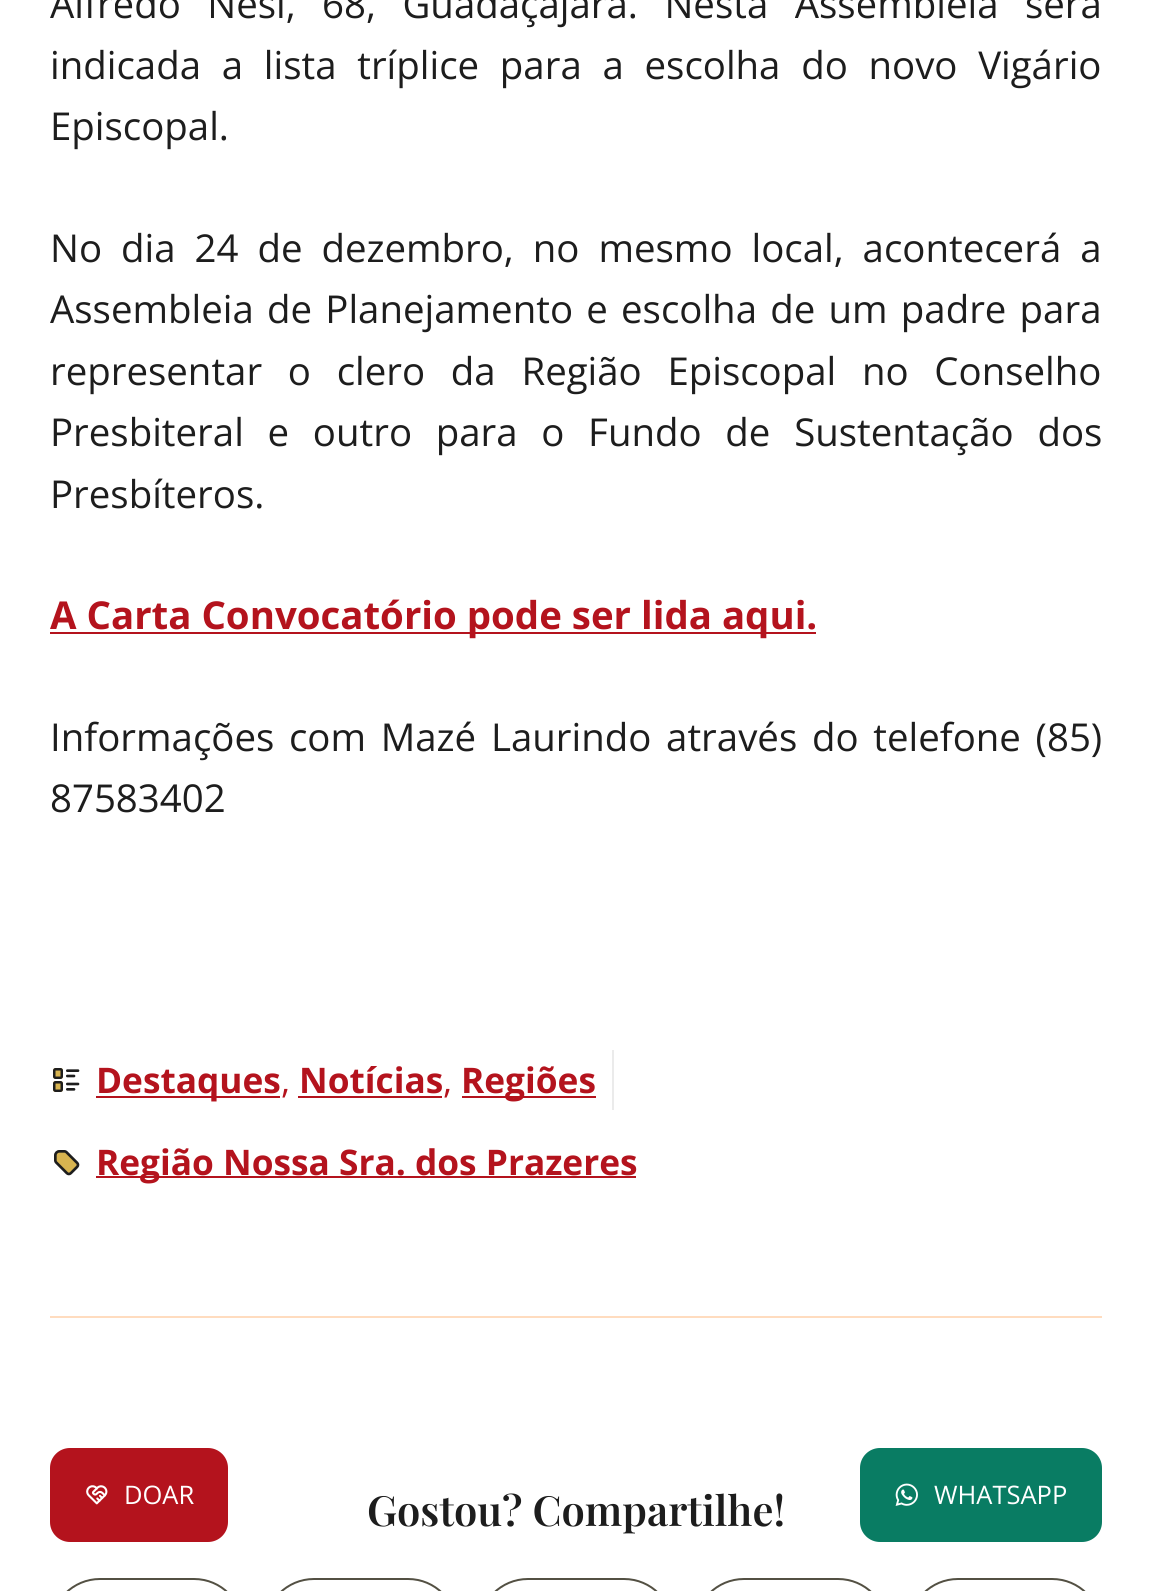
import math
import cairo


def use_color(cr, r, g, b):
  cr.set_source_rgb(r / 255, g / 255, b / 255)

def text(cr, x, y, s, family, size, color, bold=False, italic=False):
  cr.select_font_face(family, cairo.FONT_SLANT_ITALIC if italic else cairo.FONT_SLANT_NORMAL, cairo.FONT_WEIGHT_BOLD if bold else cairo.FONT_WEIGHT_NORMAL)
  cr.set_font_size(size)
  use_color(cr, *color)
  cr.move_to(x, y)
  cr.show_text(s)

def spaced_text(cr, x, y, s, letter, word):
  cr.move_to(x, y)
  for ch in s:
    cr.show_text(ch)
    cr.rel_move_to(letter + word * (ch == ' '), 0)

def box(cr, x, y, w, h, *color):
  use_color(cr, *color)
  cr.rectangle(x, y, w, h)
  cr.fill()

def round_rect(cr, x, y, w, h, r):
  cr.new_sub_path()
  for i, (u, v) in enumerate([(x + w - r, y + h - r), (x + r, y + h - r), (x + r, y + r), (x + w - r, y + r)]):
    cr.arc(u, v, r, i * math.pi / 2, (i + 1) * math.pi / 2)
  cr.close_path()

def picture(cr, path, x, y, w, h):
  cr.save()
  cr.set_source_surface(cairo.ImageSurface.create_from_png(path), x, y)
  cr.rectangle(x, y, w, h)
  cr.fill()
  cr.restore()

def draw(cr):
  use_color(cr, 255, 255, 255)
  cr.paint()
  box(cr, 50, 632, 766, 2, 180, 19, 29)
  picture(cr, "img_01.png", 53, 1068, 27, 24)
  box(cr, 96, 1096, 184, 2, 180, 19, 29)
  box(cr, 298, 1096, 144, 2, 180, 19, 29)
  box(cr, 462, 1096, 134, 2, 180, 19, 29)
  box(cr, 612, 1050, 2, 60, 235, 235, 235)
  picture(cr, "img_02.png", 54, 1150, 26, 26)
  box(cr, 96, 1176, 540, 2, 180, 19, 29)
  box(cr, 50, 1316, 1052, 2, 255, 220, 191)
  round_rect(cr, 51, 1579, 192, 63, 49)
  use_color(cr, 83, 80, 67)
  cr.stroke()
  round_rect(cr, 265, 1579, 192, 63, 49)
  cr.stroke()
  round_rect(cr, 479, 1579, 194, 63, 49)
  cr.stroke()
  round_rect(cr, 695, 1579, 192, 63, 49)
  cr.stroke()
  round_rect(cr, 909, 1579, 192, 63, 49)
  cr.stroke()
  use_color(cr, 180, 19, 29)
  round_rect(cr, 50, 1448, 178, 94, 20)
  cr.fill()
  picture(cr, "img_03.png", 86, 1485, 22, 20)
  use_color(cr, 9, 124, 99)
  round_rect(cr, 860, 1448, 242, 94, 20)
  cr.fill()
  picture(cr, "img_04.png", 895, 1483, 23, 23)
  cr.select_font_face("Open Sans")
  cr.set_font_size(38.4)
  use_color(cr, 29, 29, 29)
  spaced_text(cr, 50, 18, "Alfredo Nesi, 68, Guadaçajara. Nesta Assembleia será", 0, 16.5)
  spaced_text(cr, 50, 79, "indicada a lista tríplice para a escolha do novo Vigário", 0, 10.75)
  text(cr, 50, 140, "Episcopal.", "Open Sans", 38.4, (29, 29, 29))
  spaced_text(cr, 50, 262, "No dia 24 de dezembro, no mesmo local, acontecerá a", 0, 9)
  spaced_text(cr, 50, 323, "Assembleia de Planejamento e escolha de um padre para", 0, 3.25)
  spaced_text(cr, 50, 385, "representar o clero da Região Episcopal no Conselho", 0, 15.75)
  spaced_text(cr, 50, 446, "Presbiteral e outro para o Fundo de Sustentação dos", 0, 13.75)
  text(cr, 50, 508, "Presbíteros.", "Open Sans", 38.4, (29, 29, 29))
  text(cr, 50, 629, "A Carta Convocatório pode ser lida aqui.", "Open Sans", 38.4, (180, 19, 29), bold=True)
  cr.select_font_face("Open Sans")
  use_color(cr, 29, 29, 29)
  spaced_text(cr, 50, 751, "Informações com Mazé Laurindo através do telefone (85)", 0, 4.75)
  text(cr, 50, 812, "87583402", "Open Sans", 38.4, (29, 29, 29))
  text(cr, 96, 1093, "Destaques", "Open Sans", 35.25, (180, 19, 29), bold=True)
  text(cr, 281, 1093, ",", "Open Sans", 35.25, (180, 19, 29))
  text(cr, 299, 1093, "Notícias", "Open Sans", 35.25, (180, 19, 29), bold=True)
  text(cr, 443, 1093, ",", "Open Sans", 35.25, (180, 19, 29))
  text(cr, 461, 1093, "Regiões", "Open Sans", 35.25, (180, 19, 29), bold=True)
  text(cr, 96, 1175, "Região Nossa Sra. dos Prazeres", "Open Sans", 35.25, (180, 19, 29), bold=True)
  text(cr, 367, 1526, "Gostou? Compartilhe!", "Playfair Display SemiBold", 41.6, (29, 29, 29))
  text(cr, 124, 1504, "DOAR", "Open Sans", 25.5, (255, 255, 255))
  text(cr, 934, 1504, "WHATSAPP", "Open Sans", 25.5, (255, 255, 255))


surface = cairo.ImageSurface(cairo.FORMAT_RGB24, 1151, 1591)
cr = cairo.Context(surface)
options = cairo.FontOptions()
options.set_hint_metrics(cairo.HINT_METRICS_OFF)
options.set_hint_style(cairo.HINT_STYLE_NONE)
cr.set_font_options(options)
cr.set_miter_limit(4)
draw(cr)
surface.write_to_png("out.png")
